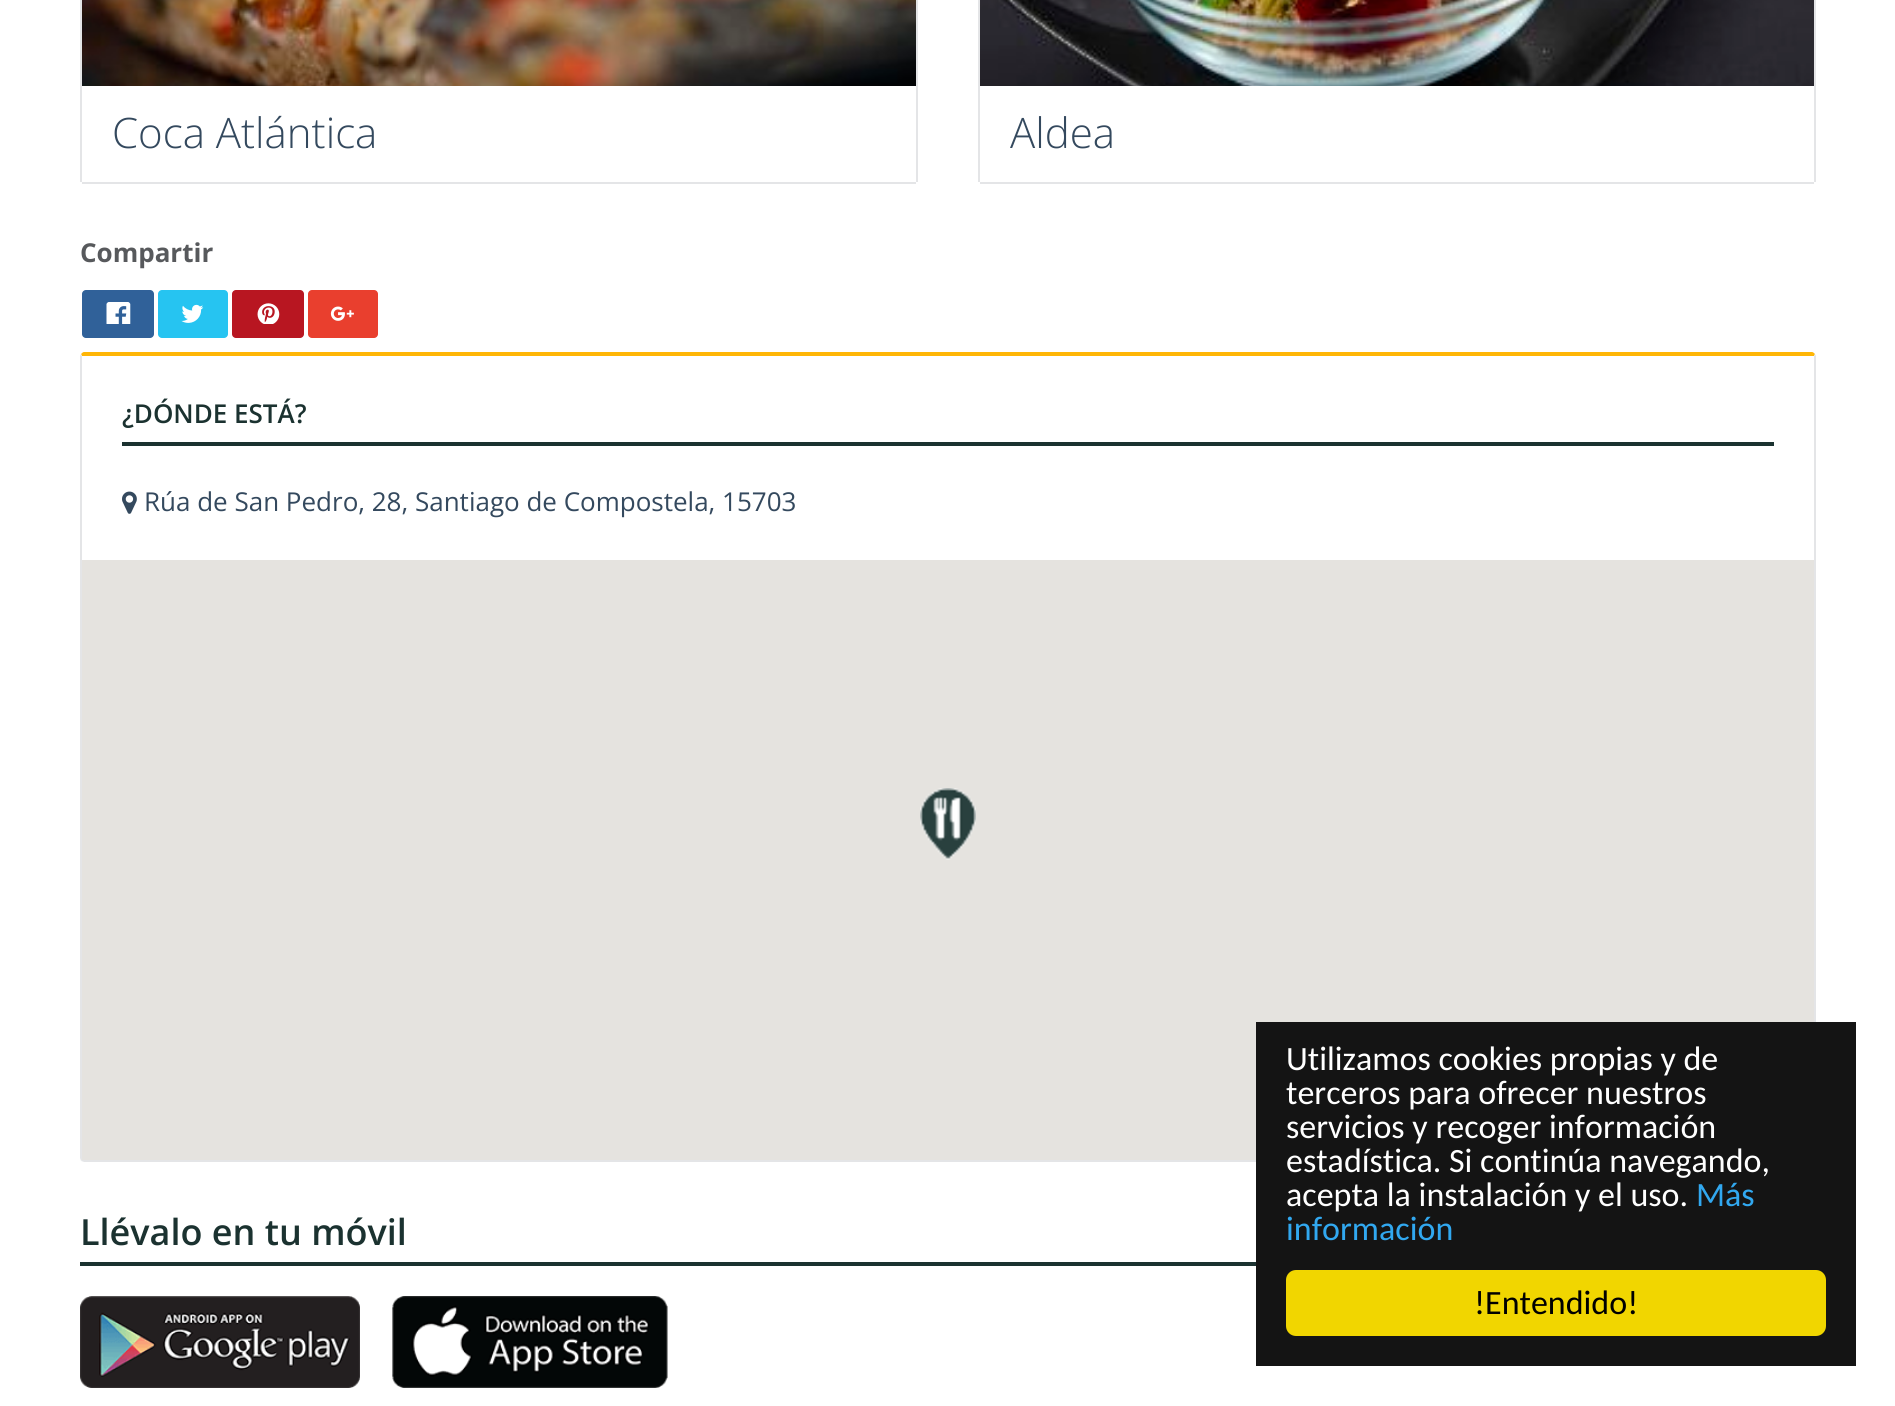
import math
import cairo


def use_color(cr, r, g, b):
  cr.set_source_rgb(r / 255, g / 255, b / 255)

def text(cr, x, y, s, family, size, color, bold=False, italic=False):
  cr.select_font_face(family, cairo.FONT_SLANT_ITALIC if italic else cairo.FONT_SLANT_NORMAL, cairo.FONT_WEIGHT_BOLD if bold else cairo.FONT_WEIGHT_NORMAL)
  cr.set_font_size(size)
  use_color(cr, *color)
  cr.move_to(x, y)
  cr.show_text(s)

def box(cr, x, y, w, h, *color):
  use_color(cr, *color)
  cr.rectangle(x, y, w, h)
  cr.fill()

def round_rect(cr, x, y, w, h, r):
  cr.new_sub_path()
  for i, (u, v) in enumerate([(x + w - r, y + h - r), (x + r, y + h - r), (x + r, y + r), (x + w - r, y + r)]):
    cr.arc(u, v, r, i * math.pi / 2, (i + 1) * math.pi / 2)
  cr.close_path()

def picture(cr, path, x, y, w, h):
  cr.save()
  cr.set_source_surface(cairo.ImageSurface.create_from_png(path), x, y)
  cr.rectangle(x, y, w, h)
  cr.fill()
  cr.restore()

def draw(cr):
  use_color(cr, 255, 255, 255)
  cr.paint()
  box(cr, 916, 0, 2, 182, 228, 229, 231)
  box(cr, 82, 182, 834, 2, 228, 229, 231)
  box(cr, 80, 0, 2, 182, 228, 229, 231)
  picture(cr, "img_01.png", 82, 0, 834, 86)
  box(cr, 1814, 0, 2, 182, 228, 229, 231)
  box(cr, 980, 182, 834, 2, 228, 229, 231)
  box(cr, 978, 0, 2, 182, 228, 229, 231)
  picture(cr, "img_02.png", 980, 0, 834, 86)
  use_color(cr, 48, 97, 153)
  round_rect(cr, 82, 290, 72, 48, 4)
  cr.fill()
  picture(cr, "img_03.png", 106, 302, 25, 22)
  use_color(cr, 38, 196, 241)
  round_rect(cr, 158, 290, 70, 48, 4)
  cr.fill()
  picture(cr, "img_04.png", 181, 304, 23, 19)
  use_color(cr, 184, 22, 33)
  round_rect(cr, 232, 290, 72, 48, 4)
  cr.fill()
  picture(cr, "img_05.png", 257, 303, 23, 21)
  use_color(cr, 233, 63, 46)
  round_rect(cr, 308, 290, 70, 48, 4)
  cr.fill()
  picture(cr, "img_06.png", 330, 306, 24, 15)
  use_color(cr, 255, 182, 6)
  cr.new_path()
  cr.move_to(84, 352)
  cr.curve_to(83, 352, 82, 353, 81, 354)
  cr.line_to(82, 356)
  cr.line_to(1814, 356)
  cr.line_to(1815, 354)
  cr.curve_to(1814, 353, 1813, 352, 1812, 352)
  cr.close_path()
  cr.fill()
  use_color(cr, 228, 229, 231)
  cr.new_path()
  cr.move_to(1816, 1158)
  cr.line_to(1816, 356)
  cr.line_to(1815, 354)
  cr.line_to(1814, 356)
  cr.line_to(1814, 1158)
  cr.line_to(1813, 1159)
  cr.line_to(1815, 1161)
  cr.close_path()
  cr.fill()
  cr.new_path()
  cr.move_to(84, 1162)
  cr.line_to(1812, 1162)
  cr.line_to(1815, 1161)
  cr.line_to(1813, 1159)
  cr.line_to(1812, 1160)
  cr.line_to(84, 1160)
  cr.line_to(83, 1159)
  cr.line_to(81, 1161)
  cr.close_path()
  cr.fill()
  cr.new_path()
  cr.move_to(80, 356)
  cr.line_to(80, 1158)
  cr.line_to(81, 1161)
  cr.line_to(83, 1159)
  cr.line_to(82, 1158)
  cr.line_to(82, 356)
  cr.line_to(81, 354)
  cr.close_path()
  cr.fill()
  box(cr, 122, 442, 1652, 4, 27, 50, 48)
  picture(cr, "img_07.png", 122, 491, 15, 23)
  box(cr, 82, 560, 1732, 600, 229, 227, 223)
  picture(cr, "img_08.png", 920, 788, 56, 72)
  box(cr, 80, 1262, 1176, 4, 27, 50, 48)
  picture(cr, "img_09.png", 80, 1296, 280, 92)
  picture(cr, "img_10.png", 392, 1296, 276, 92)
  box(cr, 1256, 1022, 600, 344, 20, 20, 20)
  use_color(cr, 241, 214, 0)
  round_rect(cr, 1286, 1270, 540, 66, 10)
  cr.fill()
  text(cr, 112, 148, "Coca Atlántica", "Open Sans Light", 42, (52, 73, 94))
  text(cr, 1010, 148, "Aldea", "Open Sans Light", 42, (52, 73, 94))
  text(cr, 80, 262, "Compartir", "Open Sans", 26, (87, 89, 92), bold=True)
  text(cr, 122, 423, "¿DÓNDE ESTÁ?", "Open Sans SemiBold", 26, (27, 50, 48))
  text(cr, 144, 511, "Rúa de San Pedro, 28, Santiago de Compostela, 15703", "Open Sans", 26, (52, 73, 94))
  text(cr, 80, 1245, "Llévalo en tu móvil", "Open Sans SemiBold", 36, (27, 50, 48))
  text(cr, 1286, 1070, "Utilizamos cookies propias y de", "Carlito", 34, (255, 255, 255))
  text(cr, 1286, 1104, "terceros para ofrecer nuestros", "Carlito", 34, (255, 255, 255))
  text(cr, 1286, 1138, "servicios y recoger información", "Carlito", 34, (255, 255, 255))
  text(cr, 1286, 1172, "estadística. Si continúa navegando,", "Carlito", 34, (255, 255, 255))
  text(cr, 1286, 1206, "acepta la instalación y el uso.", "Carlito", 34, (255, 255, 255))
  text(cr, 1696, 1206, "Más", "Carlito", 34, (49, 168, 240))
  text(cr, 1286, 1240, "información", "Carlito", 34, (49, 168, 240))
  text(cr, 1474, 1314, "!Entendido!", "Carlito", 34, (0, 0, 0))


surface = cairo.ImageSurface(cairo.FORMAT_RGB24, 1895, 1406)
cr = cairo.Context(surface)
options = cairo.FontOptions()
options.set_hint_metrics(cairo.HINT_METRICS_OFF)
options.set_hint_style(cairo.HINT_STYLE_NONE)
cr.set_font_options(options)
cr.set_miter_limit(4)
draw(cr)
surface.write_to_png("out.png")
